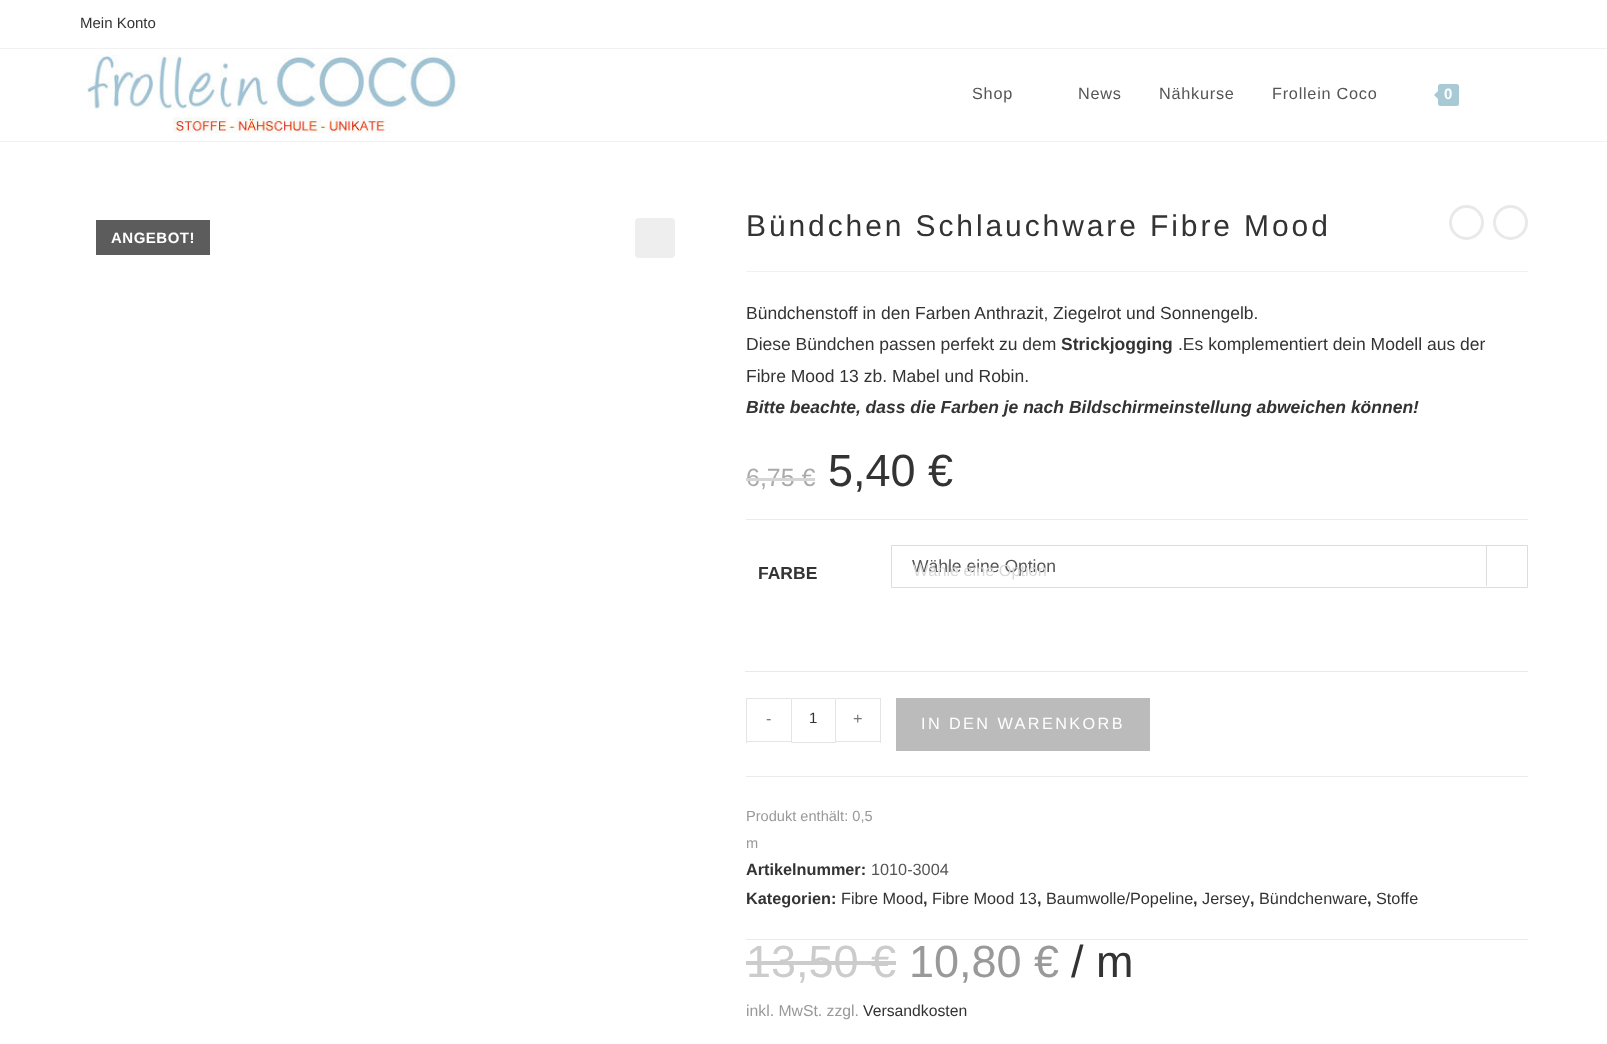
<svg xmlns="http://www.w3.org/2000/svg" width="1607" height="1044">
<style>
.a{font:15px Liberation Sans;fill:#333}
.b{font:16.25px Liberation Sans;letter-spacing:0.75px;fill:#555}
.c{font:bold 15px Liberation Sans;fill:#fff}
.d{font:bold 15px Liberation Sans;letter-spacing:0.5px;fill:#fff}
.e{font:30px Liberation Sans;letter-spacing:2.9px;fill:#333}
.f{font:17.5px Liberation Sans;fill:#333}
.g{font:bold 17.5px Liberation Sans;fill:#333}
.h{font:italic bold 17.5px Liberation Sans;fill:#333}
.i{font:25px Liberation Sans;fill:#aaa}
.j{font:45px Liberation Sans;fill:#333}
.k{font:17.5px Liberation Sans;fill:#555}
.l{font:16.25px Liberation Sans;fill:#d9d9d9}
.m{font:16.25px Liberation Sans;fill:#777}
.n{font:16.25px Liberation Sans;letter-spacing:2.4px;fill:#fff}
.o{font:14.6px Liberation Sans;fill:#999}
.p{font:bold 16.25px Liberation Sans;fill:#333}
.q{font:16.25px Liberation Sans;fill:#555}
.r{font:16.25px Liberation Sans;fill:#333}
.s{font:45px Liberation Sans;fill:#ccc}
.t{font:45px Liberation Sans;fill:#999}
.u{font:15.75px Liberation Sans;fill:#999}
.v{font:15.75px Liberation Sans;fill:#333}
</style>
<rect width="100%" height="100%" fill="#fff"/>
<path fill="#f1f1f1" d="M0 48h1607v1H0z"/>
<path fill="#f1f1f1" d="M0 141h1607v1H0z"/>
<image href="1.png" x="87" y="55" width="374" height="78"/>
<rect fill="#a8cad4" x="1438" y="84" width="21" height="22" rx="2.5"/>
<path fill="#a8cad4" d="M1440 89v12l-6-6z"/>
<path fill="#5c5c5c" d="M96 220h114v35H96z"/>
<rect fill="#eee" x="635" y="218" width="40" height="40" rx="4"/>
<path fill="#f1f1f1" d="M746 271h782v1H746z"/>
<path fill="#eaeaea" d="M746 519h782v1H746z"/>
<path fill="#eaeaea" d="M746 776h782v1H746z"/>
<path fill="#e9e9e9" d="M745 671h783v1H745z"/>
<path fill="none" stroke="#ddd" d="M891.5 545.5h636v42H891.5z"/>
<path fill="#ddd" d="M1486 546h1v40H1486z"/>
<path fill="#e4e4e4" d="M746 698h45v1H746z"/>
<path fill="#e4e4e4" d="M746 741h45v1H746z"/>
<path fill="#e4e4e4" d="M746 698h1v45H746z"/>
<path fill="none" stroke="#e4e4e4" d="M791.5 698.5h44v44H791.5z"/>
<path fill="#e4e4e4" d="M836 698h45v1H836z"/>
<path fill="#e4e4e4" d="M880 698h1v45H880z"/>
<path fill="#e4e4e4" d="M836 741h45v1H836z"/>
<path fill="#bbb" d="M896 698h254v53H896z"/>
<path fill="#eaeaea" d="M746 939h782v1H746z"/>
<path fill="#ccc" d="M746 961h150v4H746z"/>
<circle fill="none" stroke="#e9e9e9" stroke-width="3" cx="1466.5" cy="222.5" r="16"/>
<circle fill="none" stroke="#e9e9e9" stroke-width="3" cx="1510.5" cy="222.5" r="16"/>
<text class="a" x="80" y="28">Mein Konto</text>
<text class="b" x="972" y="99">Shop</text>
<text class="b" x="1078" y="99">News</text>
<text class="b" x="1159" y="99">Nähkurse</text>
<text class="b" x="1272" y="99">Frollein Coco</text>
<text class="c" x="1444" y="99">0</text>
<text class="d" x="111" y="243">ANGEBOT!</text>
<text class="e" x="746" y="236">Bündchen Schlauchware Fibre Mood</text>
<text class="f" x="746" y="319">Bündchenstoff in den Farben Anthrazit, Ziegelrot und Sonnengelb.</text>
<text class="f" x="746" y="350">Diese Bündchen passen perfekt zu dem</text>
<text class="g" x="1061" y="350">Strickjogging</text>
<text class="f" x="1178" y="350">.Es komplementiert dein Modell aus der</text>
<text class="f" x="746" y="382">Fibre Mood 13 zb. Mabel und Robin.</text>
<text class="h" x="746" y="413">Bitte beachte, dass die Farben je nach Bildschirmeinstellung abweichen können!</text>
<text class="i" x="746" y="486">6,75 €</text>
<path fill="#d5d5d5" d="M746 478h69v3H746z"/>
<text class="j" x="828" y="486">5,40 €</text>
<text class="g" x="758" y="579">FARBE</text>
<text class="k" x="912" y="572">Wähle eine Option</text>
<text class="l" x="913" y="576">Wähle eine Option</text>
<text class="m" x="766" y="724">-</text>
<text class="a" x="809" y="723">1</text>
<text class="m" x="853" y="724">+</text>
<text class="n" x="921" y="729">IN DEN WARENKORB</text>
<text class="o" x="746" y="821">Produkt enthält: 0,5</text>
<text class="o" x="746" y="848">m</text>
<text class="p" x="746" y="875">Artikelnummer:</text>
<text class="q" x="871" y="875">1010-3004</text>
<text class="p" x="746" y="904">Kategorien:</text>
<text class="r" x="841" y="904">Fibre Mood</text>
<text class="p" x="923" y="904">,</text>
<text class="r" x="932" y="904">Fibre Mood 13</text>
<text class="p" x="1037" y="904">,</text>
<text class="r" x="1046" y="904">Baumwolle/Popeline</text>
<text class="p" x="1193" y="904">,</text>
<text class="r" x="1202" y="904">Jersey</text>
<text class="p" x="1250" y="904">,</text>
<text class="r" x="1259" y="904">Bündchenware</text>
<text class="p" x="1367" y="904">,</text>
<text class="r" x="1376" y="904">Stoffe</text>
<text class="s" x="746" y="977">13,50 €</text>
<text class="t" x="909" y="977">10,80 €</text>
<text class="j" x="1071" y="977">/ m</text>
<text class="u" x="746" y="1016">inkl. MwSt. zzgl.</text>
<text class="v" x="863" y="1016">Versandkosten</text>
</svg>
